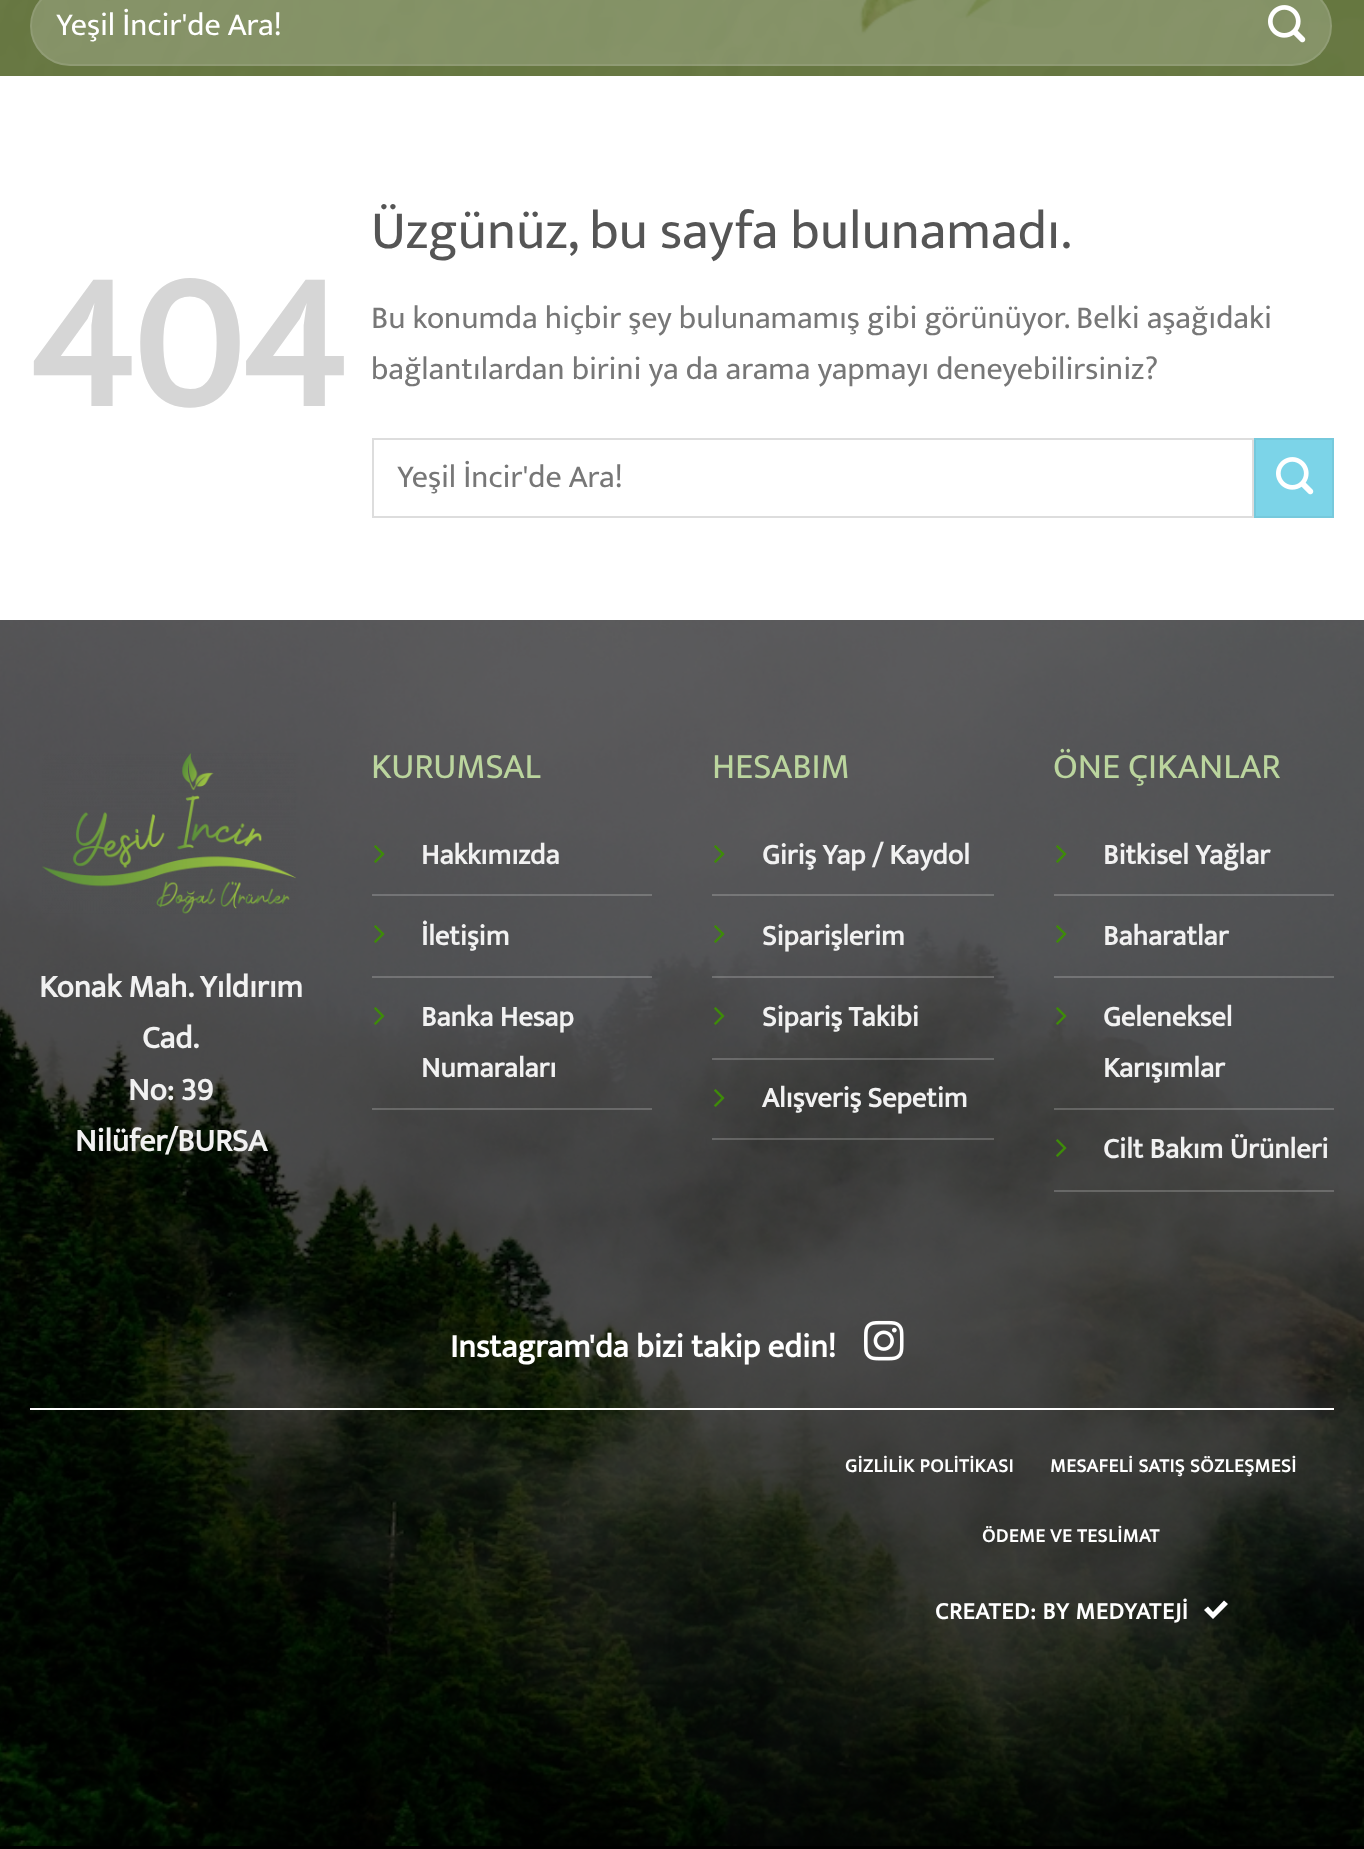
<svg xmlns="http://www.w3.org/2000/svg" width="1364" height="1849">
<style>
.a{font:32px Mukta;fill:#fff}
.b{font:bold 192px Mukta;fill:#d6d6d6}
.c{font:54.4px Mukta;fill:#555}
.d{font:32px Mukta;fill:#777}
.e{font:bold 32px Mukta;fill:#f1f1f1}
.f{font:36px Mukta;fill:#bbd59e}
.g{font:bold 28.75px Mukta;fill:#f1f1f1}
.h{font:bold 33px Mukta;fill:#fff}
.i{font:bold 19.25px Mukta;letter-spacing:0.6px;fill:#fff}
.j{font:bold 24px Mukta;letter-spacing:0.75px;fill:#fff}
</style>
<rect width="100%" height="100%" fill="#fff"/>
<image href="1.png" x="0" y="0" width="1364" height="76"/>
<rect fill="#ffffff33" x="30" y="-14" width="1302" height="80" rx="40"/>
<rect fill="none" stroke="#ffffff17" stroke-width="2" x="31" y="-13" width="1300" height="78" rx="39"/>
<image href="2.png" x="1268" y="5" width="38" height="38"/>
<path fill="none" stroke="#ddd" stroke-width="2" d="M373 439h880v78H373z"/>
<path fill="#7cd4e8" stroke="#76c9dc" stroke-width="2" d="M1255 439h78v78H1255z"/>
<image href="3.png" x="1276" y="457" width="38" height="38"/>
<image href="4.png" x="0" y="620" width="1364" height="1226"/>
<image href="5.png" x="42" y="753" width="254" height="161"/>
<path fill="#ffffff33" d="M372 894h280v2H372z"/>
<image href="6.png" x="374" y="845" width="11" height="18"/>
<path fill="#ffffff33" d="M372 976h280v2H372z"/>
<image href="7.png" x="374" y="925" width="11" height="18"/>
<path fill="#ffffff33" d="M372 1108h280v2H372z"/>
<image href="8.png" x="374" y="1007" width="11" height="18"/>
<path fill="#ffffff33" d="M712 894h282v2H712z"/>
<image href="9.png" x="714" y="845" width="11" height="18"/>
<path fill="#ffffff33" d="M712 976h282v2H712z"/>
<image href="10.png" x="714" y="925" width="11" height="18"/>
<path fill="#ffffff33" d="M712 1058h282v2H712z"/>
<image href="11.png" x="714" y="1007" width="11" height="18"/>
<path fill="#ffffff33" d="M712 1138h282v2H712z"/>
<image href="12.png" x="714" y="1089" width="11" height="18"/>
<path fill="#ffffff33" d="M1054 894h280v2H1054z"/>
<image href="13.png" x="1056" y="845" width="11" height="18"/>
<path fill="#ffffff33" d="M1054 976h280v2H1054z"/>
<image href="14.png" x="1056" y="925" width="11" height="18"/>
<path fill="#ffffff33" d="M1054 1108h280v2H1054z"/>
<image href="15.png" x="1056" y="1007" width="11" height="18"/>
<path fill="#ffffff33" d="M1054 1190h280v2H1054z"/>
<image href="16.png" x="1056" y="1139" width="11" height="18"/>
<image href="17.png" x="864" y="1320" width="40" height="41"/>
<path fill="#fff" d="M30 1408h1304v2H30z"/>
<path fill="#fff" d="M1224 1600.5l-11 11.5l-5-5.5l-4 3.5l9 9l15-15z"/>
<path fill="#000" d="M0 1846h1364v3H0z"/>
<text class="a" x="56" y="35">Yeşil İncir'de Ara!</text>
<text class="b" x="30" y="406">404</text>
<text class="c" x="371" y="248">Üzgünüz, bu sayfa bulunamadı.</text>
<text class="d" x="371" y="328">Bu konumda hiçbir şey bulunamamış gibi görünüyor. Belki aşağıdaki</text>
<text class="d" x="371" y="379">bağlantılardan birini ya da arama yapmayı deneyebilirsiniz?</text>
<text class="d" x="397" y="487">Yeşil İncir'de Ara!</text>
<text class="e" x="39" y="997">Konak Mah. Yıldırım</text>
<text class="e" x="142" y="1048">Cad.</text>
<text class="e" x="128" y="1100">No: 39</text>
<text class="e" x="75" y="1151">Nilüfer/BURSA</text>
<text class="f" x="371" y="778">KURUMSAL</text>
<text class="g" x="421" y="864">Hakkımızda</text>
<text class="g" x="421" y="945">İletişim</text>
<text class="g" x="421" y="1026">Banka Hesap</text>
<text class="g" x="421" y="1077">Numaraları</text>
<text class="f" x="712" y="778">HESABIM</text>
<text class="g" x="762" y="864">Giriş Yap / Kaydol</text>
<text class="g" x="762" y="945">Siparişlerim</text>
<text class="g" x="762" y="1026">Sipariş Takibi</text>
<text class="g" x="762" y="1107">Alışveriş Sepetim</text>
<text class="f" x="1053" y="778">ÖNE ÇIKANLAR</text>
<text class="g" x="1103" y="864">Bitkisel Yağlar</text>
<text class="g" x="1103" y="945">Baharatlar</text>
<text class="g" x="1103" y="1026">Geleneksel</text>
<text class="g" x="1103" y="1077">Karışımlar</text>
<text class="g" x="1103" y="1158">Cilt Bakım Ürünleri</text>
<text class="h" x="450" y="1357">Instagram'da bizi takip edin!</text>
<text class="i" x="845" y="1472">GİZLİLİK POLİTİKASI</text>
<text class="i" x="1050" y="1472">MESAFELİ SATIŞ SÖZLEŞMESİ</text>
<text class="i" x="982" y="1542">ÖDEME VE TESLİMAT</text>
<text class="j" x="935" y="1619">CREATED: BY MEDYATEJİ</text>
</svg>
